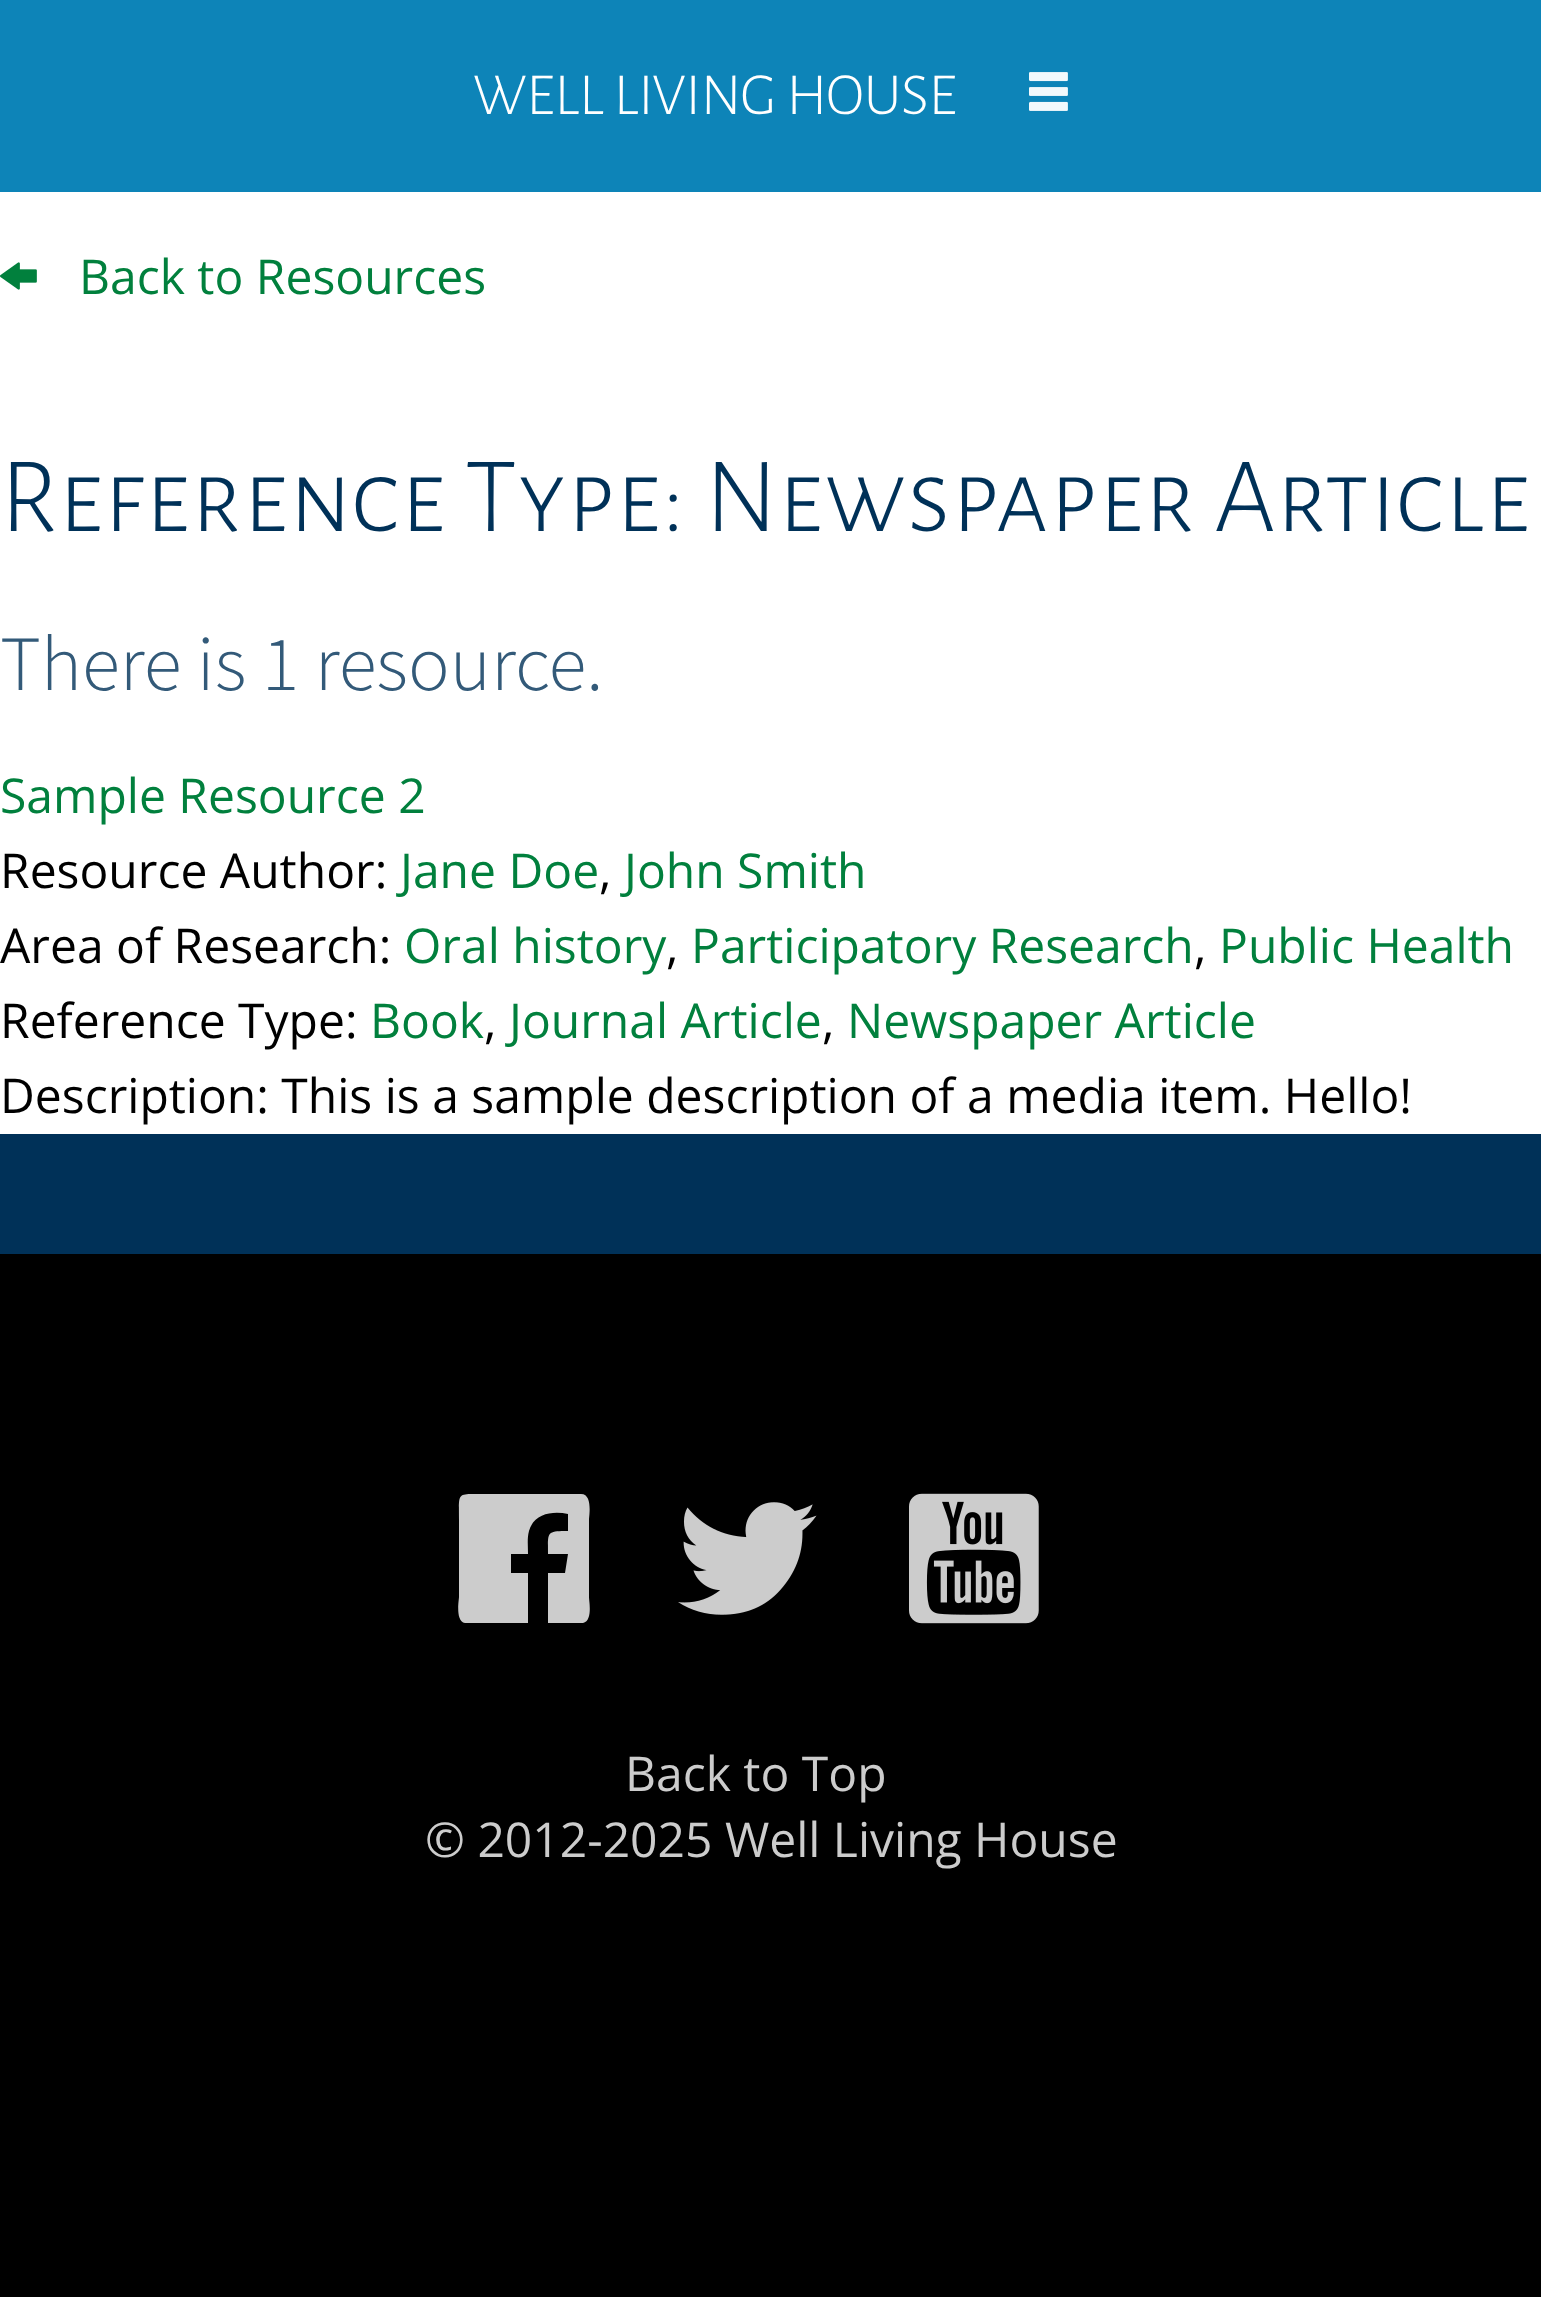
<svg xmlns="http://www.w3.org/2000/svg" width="1541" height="2297">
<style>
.a{font:300 60px Alegreya Sans SC;fill:#fff}
.b{font:48px Open Sans;fill:#01803d}
.c{font:300 108px Alegreya Sans SC;fill:#003158}
.d{font:300 78px Source Sans Pro;fill:#335a79}
.e{font:48px Open Sans;fill:#000}
.f{font:48px Open Sans;fill:#ccc}
</style>
<rect width="100%" height="100%" fill="#000"/>
<path fill="#003158" d="M0 1134h1541v120H0z"/>
<path fill="#0d84b8" d="M0 0h1541v192H0z"/>
<image href="1.png" x="1029" y="72" width="39" height="39"/>
<path fill="#fff" d="M0 192h1541v942H0z"/>
<image href="2.png" x="0" y="262" width="37" height="28"/>
<path fill="#ccc" d="M581 1494c12 0 8 22 8 26v77c0 4 4 24-6 26h-35v-50h17l3-19h-20c0-22-2-23 20-23v-17c-15-3-34-1-39 17c-2 7-1 15-1 23h-17v19h17v50h-63c-10-2-6-23-6-26v-77c0-29-3-26 26-26z"/>
<image href="3.png" x="678" y="1502" width="139" height="113"/>
<image href="4.png" x="909" y="1493" width="130" height="131"/>
<text class="a" x="473" y="114">WELL LIVING HOUSE</text>
<text class="b" x="79" y="294">Back to Resources</text>
<text class="c" x="0" y="531">Reference Type: Newspaper Article</text>
<text class="d" x="0" y="690">There is 1 resource.</text>
<text class="b" x="0" y="813">Sample Resource 2</text>
<text class="e" x="0" y="888">Resource Author:</text>
<text class="b" x="400" y="888">Jane Doe</text>
<text class="e" x="599" y="888">,</text>
<text class="b" x="624" y="888">John Smith</text>
<text class="e" x="0" y="963">Area of Research:</text>
<text class="b" x="404" y="963">Oral history</text>
<text class="e" x="666" y="963">,</text>
<text class="b" x="691" y="963">Participatory Research</text>
<text class="e" x="1194" y="963">,</text>
<text class="b" x="1219" y="963">Public Health</text>
<text class="e" x="0" y="1038">Reference Type:</text>
<text class="b" x="370" y="1038">Book</text>
<text class="e" x="484" y="1038">,</text>
<text class="b" x="509" y="1038">Journal Article</text>
<text class="e" x="822" y="1038">,</text>
<text class="b" x="847" y="1038">Newspaper Article</text>
<text class="e" x="0" y="1113">Description: This is a sample description of a media item. Hello!</text>
<text class="f" x="625" y="1791">Back to Top</text>
<text class="f" x="425" y="1857">© 2012-2025 Well Living House</text>
</svg>
